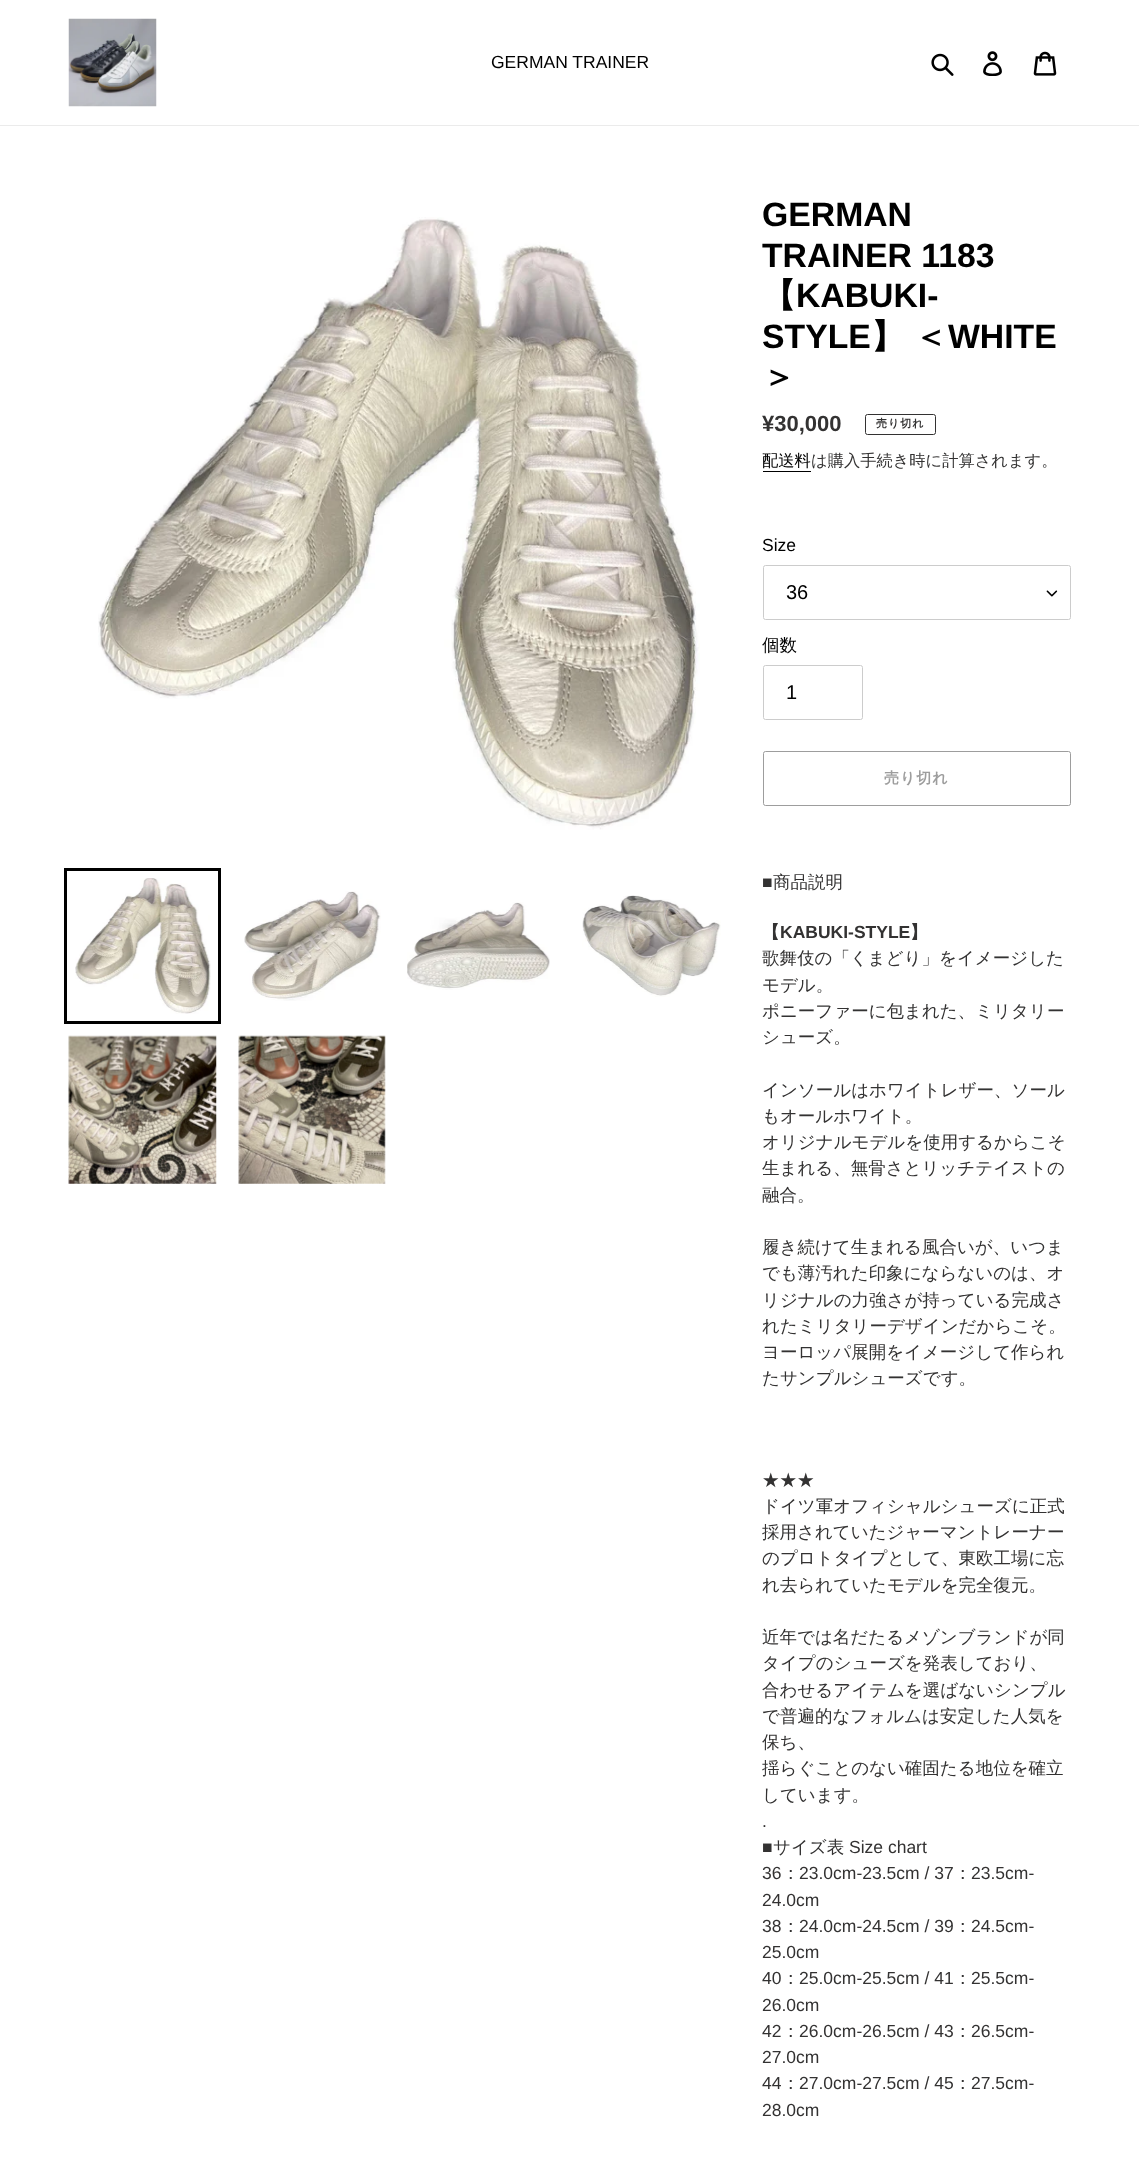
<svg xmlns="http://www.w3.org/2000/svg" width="1139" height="2158">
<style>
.a{font:17.5px Liberation Sans;fill:#000}
.b{font:bold 33.75px Liberation Sans;fill:#000}
.c{font:bold 33.75px WenQuanYi Zen Hei;fill:#000}
.d{font:bold 22px Liberation Sans;fill:#333232}
.e{font:bold 11px WenQuanYi Zen Hei;letter-spacing:1px;fill:#333232}
.f{font:500 16.25px WenQuanYi Zen Hei;fill:#000}
.g{font:500 16.25px WenQuanYi Zen Hei;fill:#333232}
.h{font:20px Liberation Sans;fill:#000}
.i{font:500 17.5px WenQuanYi Zen Hei;fill:#000}
.j{font:bold 15px WenQuanYi Zen Hei;letter-spacing:1px;fill:#9d9d9d}
.k{font:17.5px Liberation Sans;fill:#333232}
.l{font:500 17.5px WenQuanYi Zen Hei;fill:#333232}
.m{font:bold 17.5px WenQuanYi Zen Hei;fill:#333232}
.n{font:bold 17.5px Liberation Sans;fill:#333232}
</style>
<rect width="100%" height="100%" fill="#fff"/>
<path fill="#ebebeb" d="M0 125h1139v1H0z"/>
<image href="1.png" x="68" y="18" width="89" height="89"/>
<image href="2.png" x="931" y="53" width="23" height="23"/>
<image href="3.png" x="983" y="51" width="19" height="25"/>
<image href="4.png" x="1033" y="51" width="24" height="25"/>
<image href="5.png" x="98" y="217" width="602" height="613"/>
<path fill="none" stroke="#000" stroke-width="3" d="M65.5 869.5h154v153H65.5z"/>
<image href="6.png" x="75" y="878" width="136" height="136"/>
<image href="7.png" x="244" y="891" width="137" height="110"/>
<image href="8.png" x="407" y="902" width="143" height="88"/>
<image href="9.png" x="582" y="895" width="139" height="102"/>
<image href="10.png" x="68" y="1035" width="149" height="149"/>
<image href="11.png" x="238" y="1035" width="148" height="149"/>
<rect fill="none" stroke="#333232" x="865.5" y="414.5" width="70" height="20" rx="2"/>
<path fill="#000" d="M763 471h48v1H763z"/>
<image href="12.png" x="1046" y="590" width="12" height="7"/>
<rect fill="none" stroke="#ccc" x="763.5" y="565.5" width="307" height="54" rx="2"/>
<rect fill="none" stroke="#ccc" x="763.5" y="665.5" width="99" height="54" rx="2"/>
<rect fill="none" stroke="#9d9d9d" x="763.5" y="751.5" width="307" height="54" rx="2"/>
<text class="a" x="491" y="68">GERMAN TRAINER</text>
<text class="b" x="762" y="226">GERMAN</text>
<text class="b" x="762" y="267">TRAINER 1183</text>
<text class="c" x="762" y="307">【</text>
<text class="b" x="796" y="307">KABUKI-</text>
<text class="b" x="762" y="348">STYLE</text>
<text class="c" x="871" y="348" word-spacing="-1">】 ＜</text>
<text class="b" x="948" y="348">WHITE</text>
<text class="c" x="762" y="388">＞</text>
<text class="d" x="762" y="431">¥30,000</text>
<text class="e" x="876" y="427">売り切れ</text>
<text class="f" x="762" y="466">配送料</text>
<text class="g" x="811" y="466">は購入手続き時に計算されます。</text>
<text class="a" x="762" y="551">Size</text>
<text class="h" x="786" y="599">36</text>
<text class="i" x="762" y="651">個数</text>
<text class="h" x="786" y="699">1</text>
<text class="j" x="884" y="783">売り切れ</text>
<text class="k" x="762" y="888">■</text>
<text class="l" x="773" y="888">商品説明</text>
<text class="m" x="762" y="938">【</text>
<text class="n" x="780" y="938">KABUKI-STYLE</text>
<text class="m" x="910" y="938">】</text>
<text class="l" x="762" y="964">歌舞伎の「くまどり」をイメージした</text>
<text class="l" x="762" y="991">モデル。</text>
<text class="l" x="762" y="1017">ポニーファーに包まれた、ミリタリー</text>
<text class="l" x="762" y="1043">シューズ。</text>
<text class="l" x="762" y="1096">インソールはホワイトレザー、ソール</text>
<text class="l" x="762" y="1122">もオールホワイト。</text>
<text class="l" x="762" y="1148">オリジナルモデルを使用するからこそ</text>
<text class="l" x="762" y="1174">生まれる、無骨さとリッチテイストの</text>
<text class="l" x="762" y="1201">融合。</text>
<text class="l" x="762" y="1253">履き続けて生まれる風合いが、いつま</text>
<text class="l" x="762" y="1279">でも薄汚れた印象にならないのは、オ</text>
<text class="l" x="762" y="1306">リジナルの力強さが持っている完成さ</text>
<text class="l" x="762" y="1332">れたミリタリーデザインだからこそ。</text>
<text class="l" x="762" y="1358">ヨーロッパ展開をイメージして作られ</text>
<text class="l" x="762" y="1384">たサンプルシューズです。</text>
<text class="l" x="762" y="1486">★★★</text>
<text class="l" x="762" y="1512">ドイツ軍オフィシャルシューズに正式</text>
<text class="l" x="762" y="1538">採用されていたジャーマントレーナー</text>
<text class="l" x="762" y="1564">のプロトタイプとして、東欧工場に忘</text>
<text class="l" x="762" y="1591">れ去られていたモデルを完全復元。</text>
<text class="l" x="762" y="1643">近年では名だたるメゾンブランドが同</text>
<text class="l" x="762" y="1669">タイプのシューズを発表しており、</text>
<text class="l" x="762" y="1696">合わせるアイテムを選ばないシンプル</text>
<text class="l" x="762" y="1722">で普遍的なフォルムは安定した人気を</text>
<text class="l" x="762" y="1748">保ち、</text>
<text class="l" x="762" y="1774">揺らぐことのない確固たる地位を確立</text>
<text class="l" x="762" y="1801">しています。</text>
<text class="k" x="762" y="1827">.</text>
<text class="k" x="762" y="1853">■</text>
<text class="l" x="773" y="1853">サイズ表</text>
<text class="k" x="849" y="1853">Size chart</text>
<text class="k" x="762" y="1879">36</text>
<text class="l" x="782" y="1879">：</text>
<text class="k" x="799" y="1879">23.0cm-23.5cm / 37</text>
<text class="l" x="954" y="1879">：</text>
<text class="k" x="971" y="1879">23.5cm-</text>
<text class="k" x="762" y="1906">24.0cm</text>
<text class="k" x="762" y="1932">38</text>
<text class="l" x="782" y="1932">：</text>
<text class="k" x="799" y="1932">24.0cm-24.5cm / 39</text>
<text class="l" x="954" y="1932">：</text>
<text class="k" x="971" y="1932">24.5cm-</text>
<text class="k" x="762" y="1958">25.0cm</text>
<text class="k" x="762" y="1984">40</text>
<text class="l" x="782" y="1984">：</text>
<text class="k" x="799" y="1984">25.0cm-25.5cm / 41</text>
<text class="l" x="954" y="1984">：</text>
<text class="k" x="971" y="1984">25.5cm-</text>
<text class="k" x="762" y="2011">26.0cm</text>
<text class="k" x="762" y="2037">42</text>
<text class="l" x="782" y="2037">：</text>
<text class="k" x="799" y="2037">26.0cm-26.5cm / 43</text>
<text class="l" x="954" y="2037">：</text>
<text class="k" x="971" y="2037">26.5cm-</text>
<text class="k" x="762" y="2063">27.0cm</text>
<text class="k" x="762" y="2089">44</text>
<text class="l" x="782" y="2089">：</text>
<text class="k" x="799" y="2089">27.0cm-27.5cm / 45</text>
<text class="l" x="954" y="2089">：</text>
<text class="k" x="971" y="2089">27.5cm-</text>
<text class="k" x="762" y="2116">28.0cm</text>
</svg>
